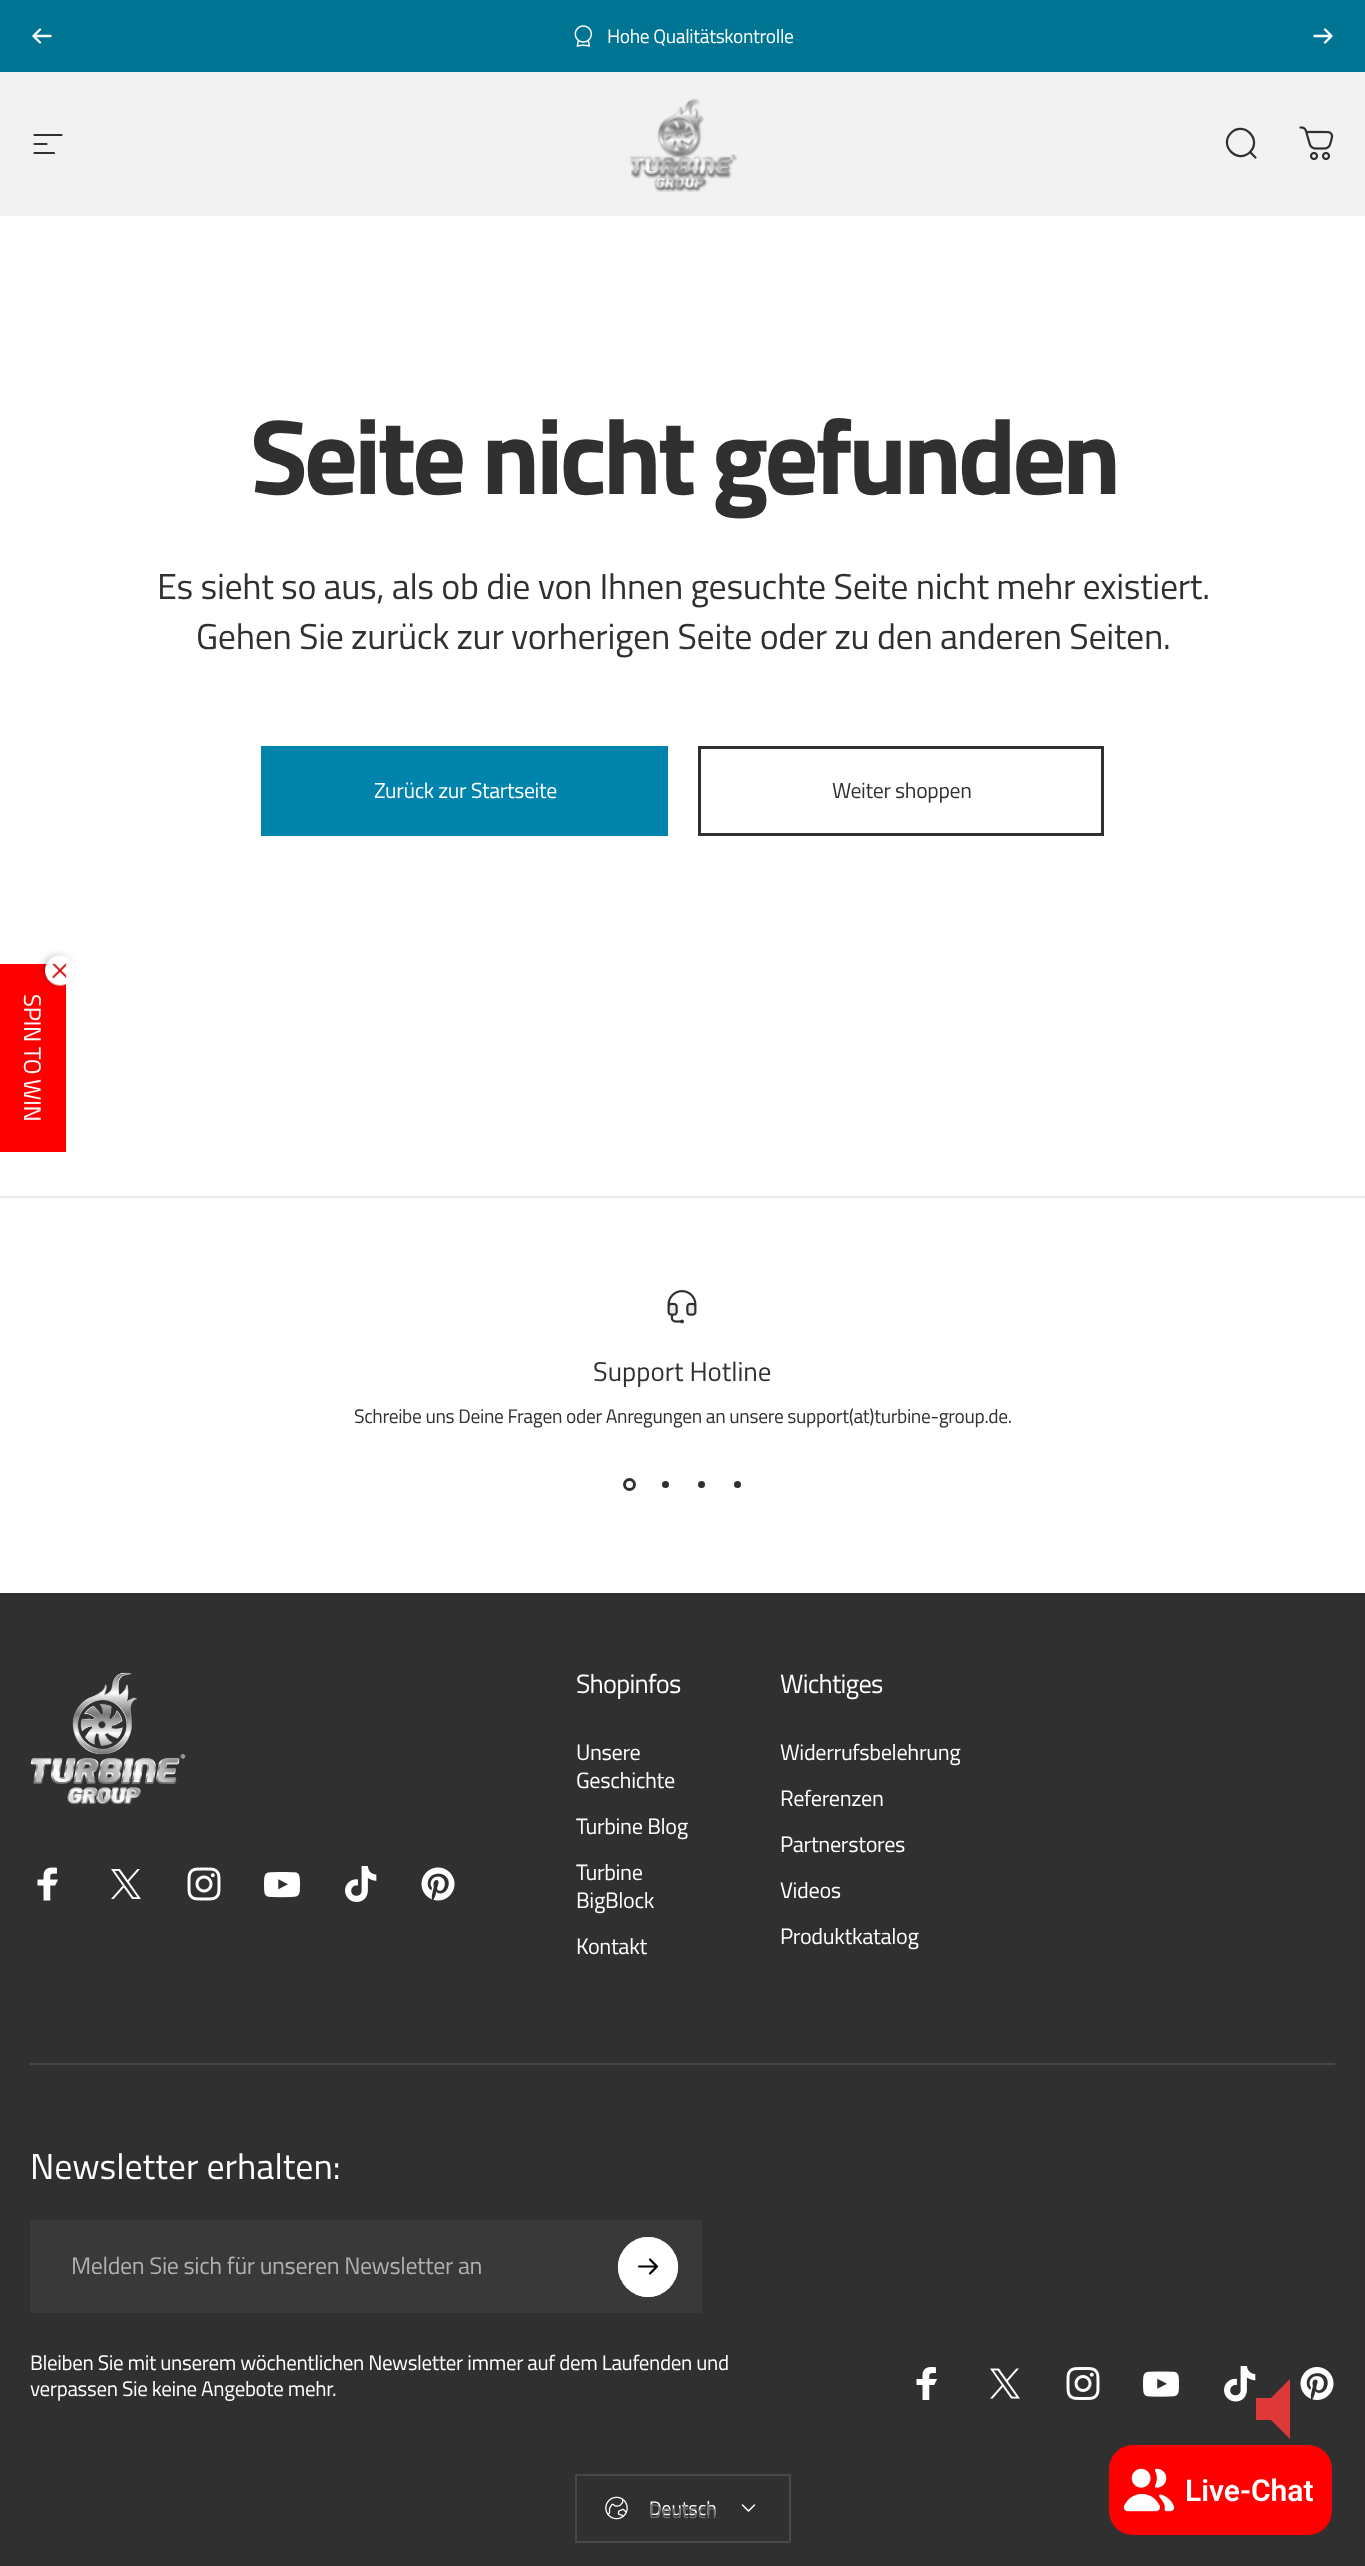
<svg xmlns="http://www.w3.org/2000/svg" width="1365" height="2566">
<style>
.a{font:19.5px Titillium Web;letter-spacing:-0.35px;fill:#fff}
.b{font:bold 106.75px Titillium Web;letter-spacing:-4.25px;fill:#303030}
.c{font:36px Titillium Web;letter-spacing:-0.35px;fill:#303030}
.d{font:21.75px Titillium Web;letter-spacing:-0.35px;fill:#fff}
.e{font:21.75px Titillium Web;letter-spacing:-0.35px;fill:#303030}
.f{font:27px Titillium Web;fill:#303030}
.g{font:19.5px Titillium Web;letter-spacing:-0.35px;fill:#303030}
.h{font:26.5px Titillium Web;letter-spacing:-0.75px;fill:#fff}
.i{font:22.25px Titillium Web;letter-spacing:-0.35px;fill:#fff}
.j{font:36px Titillium Web;fill:#fff}
.k{font:24px Titillium Web;letter-spacing:-0.35px;fill:#b0b0b0}
.l{font:21px Titillium Web;letter-spacing:-0.35px;fill:#fff}
.m{font:19.5px Titillium Web;fill:#fff}
.n{font:19.5px Titillium Web;fill:#6f6f6f}
.o{font:24px Titillium Web;letter-spacing:-0.35px;fill:#fff}
.p{font:600 30px Roboto;fill:#fff}
</style>
<rect width="100%" height="100%" fill="#fff"/>
<path fill="#007593" d="M0 0h1365v72H0z"/>
<path fill="none" stroke="#fafafa" stroke-width="2.4" stroke-linecap="round" stroke-linejoin="round" d="M40 29.5l-6.5 6.5m0 0l6.5 6.5m-6.5-6.5h17"/>
<image href="1.png" x="574" y="25" width="19" height="22"/>
<path fill="none" stroke="#fafafa" stroke-width="2.4" stroke-linecap="round" stroke-linejoin="round" d="M1314.5 36h17m0 0l-6.5-6.5m6.5 6.5l-6.5 6.5"/>
<path fill="#f2f2f2" d="M0 72h1365v144H0z"/>
<path fill="none" stroke="#303030" stroke-width="2.2" stroke-linecap="round" d="M34.5 135h27m-27 9h12m-12 9h19.5"/>
<image href="2.png" x="629" y="98" width="109" height="94"/>
<path fill="none" stroke="#303030" stroke-width="2.2" stroke-linecap="round" d="M1255.5 157.5l-5.5-5.5m0 0c12.5-12.5-6.5-31.5-19-19c-12.5 12.5 6.5 31.5 19 19z"/>
<image href="3.png" x="1299" y="126" width="35" height="35"/>
<path fill="#0084ab" d="M261 746h407v90H261z"/>
<path fill="none" stroke="#303030" stroke-width="3" d="M699.5 747.5h403v87H699.5z"/>
<path fill="#eaeaea" d="M0 1196h1365v2H0z"/>
<image href="4.png" x="667" y="1290" width="30" height="34"/>
<circle fill="none" stroke="#303030" stroke-width="3" cx="629.5" cy="1484.5" r="5"/>
<circle fill="#303030" cx="665.5" cy="1484.5" r="3.5"/>
<circle fill="#303030" cx="701.5" cy="1484.5" r="3.5"/>
<circle fill="#303030" cx="737.5" cy="1484.5" r="3.5"/>
<path fill="#303030" d="M0 1593h1365v973H0z"/>
<image href="5.png" x="30" y="1672" width="156" height="133"/>
<image href="6.png" x="37" y="1867" width="21" height="34"/>
<image href="7.png" x="111" y="1869" width="30" height="30"/>
<image href="8.png" x="187" y="1867" width="34" height="34"/>
<image href="9.png" x="264" y="1872" width="36" height="26"/>
<image href="10.png" x="345" y="1866" width="32" height="36"/>
<image href="11.png" x="421" y="1867" width="34" height="34"/>
<path fill="#484848" d="M30 2063h1305v2H30z"/>
<path fill="#393939" d="M30 2220h672v93H30z"/>
<circle fill="#fff" cx="648" cy="2267" r="30"/>
<path fill="#fff" fill-rule="evenodd" d="M648 2237c-5 0-9 1-13 3h26c-4-2-8-3-13-3zm27 17c4 8 4 18 0 26zm-14 40c-8 4-18 4-26 0zm-40-14c-4-8-4-18 0-26z"/>
<path fill="none" stroke="#000" stroke-width="2.2" stroke-linecap="round" stroke-linejoin="round" d="M639 2266.5h18m0 0l-7-7m7 7l-7 7"/>
<image href="12.png" x="916" y="2367" width="21" height="33"/>
<image href="13.png" x="990" y="2368" width="30" height="31"/>
<image href="14.png" x="1066" y="2367" width="34" height="33"/>
<image href="15.png" x="1143" y="2371" width="36" height="26"/>
<image href="16.png" x="1224" y="2366" width="32" height="36"/>
<image href="17.png" x="1300" y="2367" width="34" height="33"/>
<path fill="none" stroke="#484848" stroke-width="2" d="M576 2475h214v67H576z"/>
<image href="18.png" x="605" y="2496" width="23" height="24"/>
<path fill="none" stroke="#fff" stroke-width="1.5" stroke-linecap="round" stroke-linejoin="round" d="M742.5 2505l6 6l6-6"/>
<path fill="#f00" d="M0 964h66v188H0z"/>
<image href="19.png" x="38" y="951" width="38" height="39"/>
<path fill="#df3838" d="M1256 2398v22h15l19 19v-60l-19 19z"/>
<rect fill="#f00" x="1109" y="2445" width="223" height="90" rx="24"/>
<image href="20.png" x="1123" y="2468" width="52" height="44"/>
<text class="a" x="607" y="43">Hohe Qualitätskontrolle</text>
<text class="b" x="250" y="494">Seite nicht gefunden</text>
<text class="c" x="157" y="599">Es sieht so aus, als ob die von Ihnen gesuchte Seite nicht mehr existiert.</text>
<text class="c" x="196" y="649">Gehen Sie zurück zur vorherigen Seite oder zu den anderen Seiten.</text>
<text class="d" x="374" y="798">Zurück zur Startseite</text>
<text class="e" x="832" y="798">Weiter shoppen</text>
<text class="f" x="593" y="1381">Support Hotline</text>
<text class="g" x="354" y="1423">Schreibe uns Deine Fragen oder Anregungen an unsere support(at)turbine-group.de.</text>
<text class="h" x="576" y="1693">Shopinfos</text>
<text class="i" x="576" y="1760">Unsere</text>
<text class="i" x="576" y="1788">Geschichte</text>
<text class="i" x="576" y="1834">Turbine Blog</text>
<text class="i" x="576" y="1880">Turbine</text>
<text class="i" x="576" y="1908">BigBlock</text>
<text class="i" x="576" y="1954">Kontakt</text>
<text class="h" x="780" y="1693">Wichtiges</text>
<text class="i" x="780" y="1760">Widerrufsbelehrung</text>
<text class="i" x="780" y="1806">Referenzen</text>
<text class="i" x="780" y="1852">Partnerstores</text>
<text class="i" x="780" y="1898">Videos</text>
<text class="i" x="780" y="1944">Produktkatalog</text>
<text class="j" x="30" y="2179">Newsletter erhalten:</text>
<text class="k" x="71" y="2274">Melden Sie sich für unseren Newsletter an</text>
<text class="l" x="30" y="2370">Bleiben Sie mit unserem wöchentlichen Newsletter immer auf dem Laufenden und</text>
<text class="l" x="30" y="2396">verpassen Sie keine Angebote mehr.</text>
<text class="m" x="649" y="2515">Deutsch</text>
<text class="n" x="649" y="2518">Deutsch</text>
<text class="o" x="24" y="994" transform="rotate(90 24 994)">SPIN TO WIN</text>
<text class="p" x="1185" y="2501">Live-Chat</text>
</svg>
